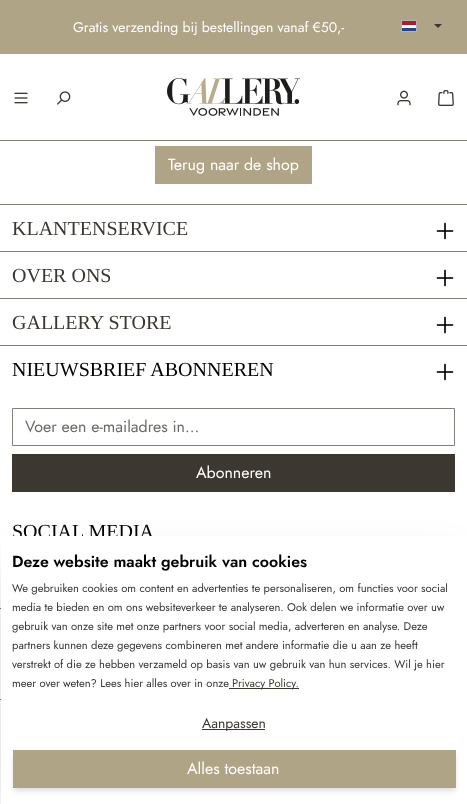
<svg xmlns="http://www.w3.org/2000/svg" width="467" height="804">
<style>
.a{font:14px Jost;fill:#fff}
.b{font:16px Jost;fill:#fff}
.c{font:20px Liberation Serif;fill:#3c3831}
.d{font:20px Liberation Serif;fill:#000}
.e{font:16px Jost;fill:#6d6a65}
.f{font:600 16px Jost;fill:#000}
.g{font:11.2px Jost;fill:#333}
.h{font:11.2px Jost;fill:#3c3831}
.i{font:14px Jost;fill:#3c3831}
</style>
<rect width="100%" height="100%" fill="#fff"/>
<path fill="#837e77" d="M0 140h467v1H0z"/>
<path fill="#b0a486" d="M0 0h467v54H0z"/>
<path fill="#21468b" d="M402 28h14v3H402z"/>
<path fill="#fff" d="M402 25h14v3H402z"/>
<path fill="#ae1c28" d="M402 21h14v4H402z"/>
<path fill="none" stroke="#adb5bd" d="M401.5 20.5h15v11H401.5z"/>
<path fill="#3c3831" d="M434 24h8l-4 4z"/>
<image href="1.png" x="14" y="92" width="14" height="12"/>
<image href="2.png" x="57" y="91" width="14" height="14"/>
<image href="3.png" x="167" y="78" width="133" height="38"/>
<image href="4.png" x="397" y="90" width="14" height="16"/>
<image href="5.png" x="438" y="90" width="16" height="16"/>
<path fill="#b0a486" d="M155 146h157v38H155z"/>
<path fill="#837e77" d="M0 204h467v1H0z"/>
<path fill="#837e77" d="M0 251h467v1H0z"/>
<image href="6.png" x="436" y="222" width="18" height="18"/>
<path fill="#837e77" d="M0 298h467v1H0z"/>
<image href="6.png" x="436" y="269" width="18" height="18"/>
<path fill="#837e77" d="M0 345h467v1H0z"/>
<image href="6.png" x="436" y="316" width="18" height="18"/>
<path fill="#837e77" d="M0 608h1v1H0z"/>
<image href="6.png" x="436" y="363" width="18" height="18"/>
<path fill="none" stroke="#837e77" d="M12.5 408.5h442v37H12.5z"/>
<path fill="#3c3831" d="M12 454h443v38H12z"/>
<path fill="#837e77" d="M0 699h1v1H0z"/>
<path fill="#00000040" filter="blur(25px)" d="M13 573h443v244H13z"/>
<text class="a" x="73" y="32">Gratis verzending bij bestellingen vanaf €50,-</text>
<text class="b" x="168" y="170">Terug naar de shop</text>
<text class="c" x="12" y="235">KLANTENSERVICE</text>
<text class="c" x="12" y="282">OVER ONS</text>
<text class="c" x="12" y="329">GALLERY STORE</text>
<text class="d" x="12" y="376">NIEUWSBRIEF ABONNEREN</text>
<text class="e" x="25" y="432">Voer een e-mailadres in...</text>
<text class="b" x="196" y="478">Abonneren</text>
<text class="d" x="12" y="538">SOCIAL MEDIA</text>
<path fill="#fff" d="M1 536h466v268H1z"/>
<text class="f" x="12" y="567">Deze website maakt gebruik van cookies</text>
<text class="g" x="12" y="592">We gebruiken cookies om content en advertenties te personaliseren, om functies voor social</text>
<text class="g" x="12" y="611">media te bieden en om ons websiteverkeer te analyseren. Ook delen we informatie over uw</text>
<text class="g" x="12" y="630">gebruik van onze site met onze partners voor social media, adverteren en analyse. Deze</text>
<text class="g" x="12" y="649">partners kunnen deze gegevens combineren met andere informatie die u aan ze heeft</text>
<text class="g" x="12" y="668">verstrekt of die ze hebben verzameld op basis van uw gebruik van hun services. Wil je hier</text>
<text class="g" x="12" y="687">meer over weten? Lees hier alles over in onze</text>
<path fill="#3c3831" d="M229 688h70v1H229z"/>
<text class="h" x="232" y="687">Privacy Policy.</text>
<path fill="#3c3831" d="M202 729h63v1H202z"/>
<text class="i" x="202" y="728">Aanpassen</text>
<path fill="#0000000f" filter="blur(2px)" d="M14 753h441v36H14z"/>
<path fill="#0000001a" filter="blur(3px)" d="M14 755h441v36H14z"/>
<path fill="#b0a486" d="M13 750h443v38H13z"/>
<text class="b" x="187" y="774">Alles toestaan</text>
</svg>
